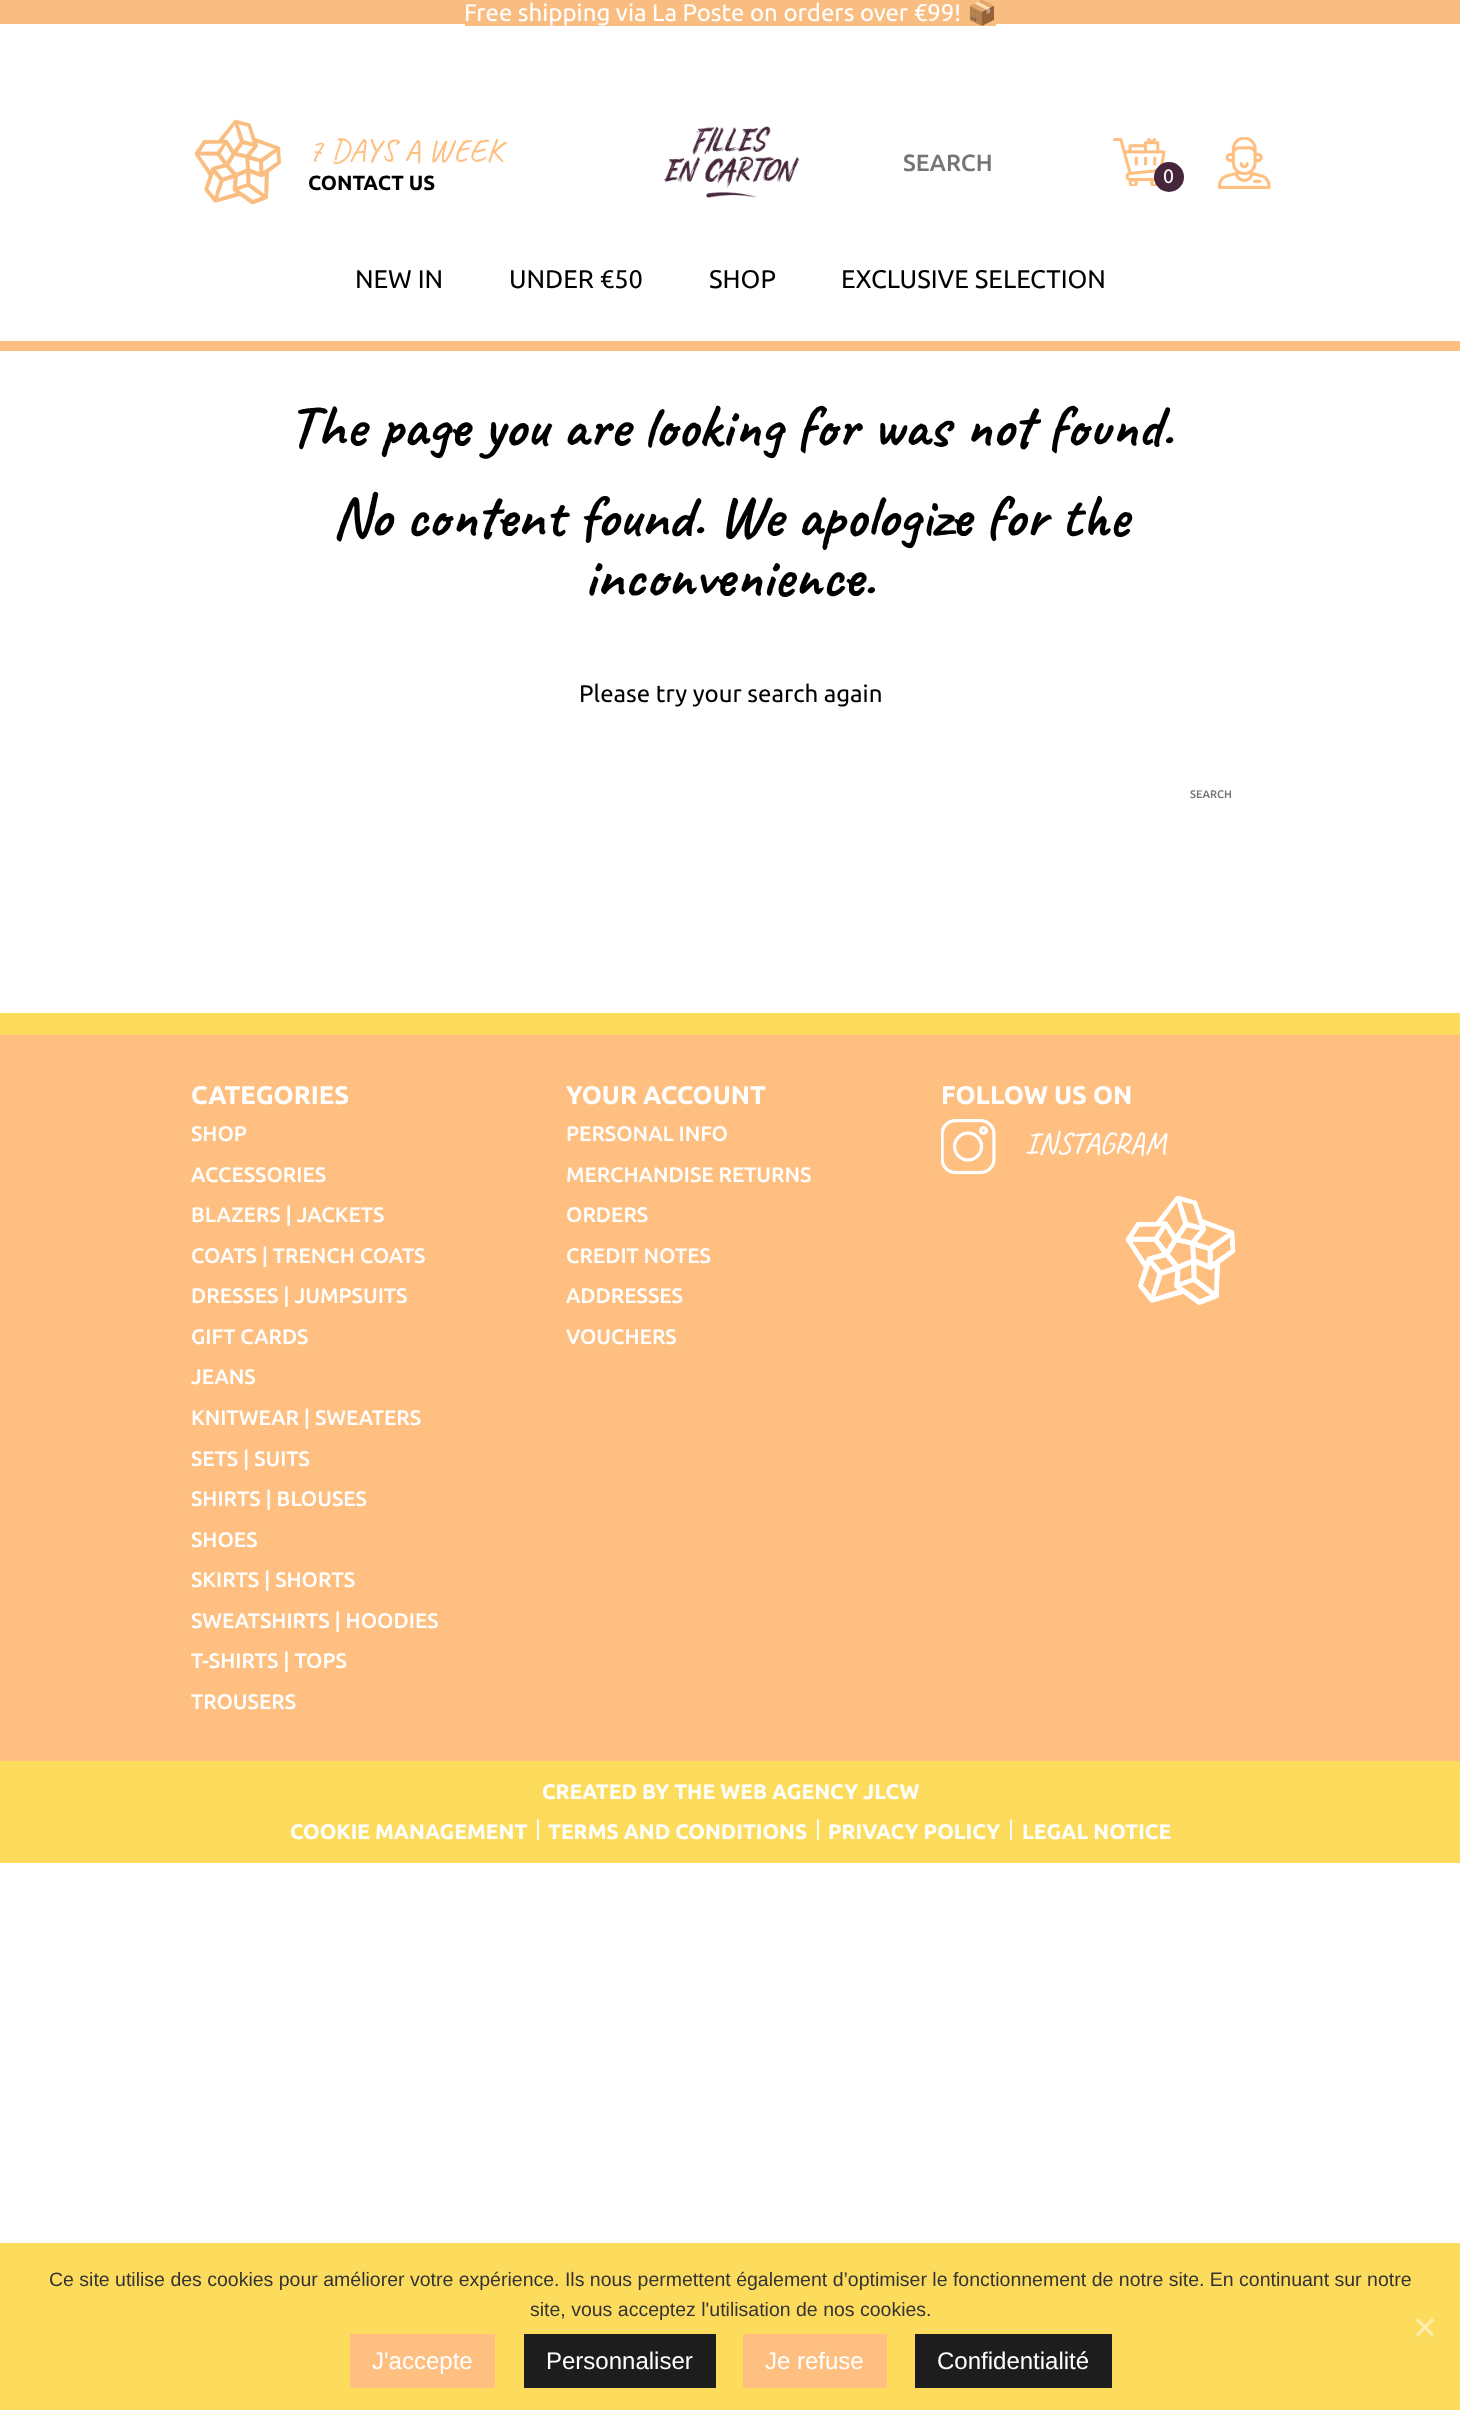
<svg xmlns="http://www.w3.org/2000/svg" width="1460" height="2410">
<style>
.a{font:24px Ubuntu;fill:#fff}
.b{font:24px Noto Color Emoji;fill:#fff}
.c{font:32.5px Caveat;fill:#ffbf81}
.d{font:bold 20.5px Ubuntu;fill:#000}
.e{font:500 23.5px Ubuntu;fill:#757575}
.f{font:19.5px Ubuntu;fill:#fff}
.g{font:25.5px Ubuntu;fill:#000}
.h{font:bold 60px Caveat;fill:#000}
.i{font:24px Ubuntu;fill:#000}
.j{font:500 11px Ubuntu;fill:#757575}
.k{font:bold 25.5px Ubuntu;fill:#fff}
.l{font:500 21px Ubuntu;fill:#fff}
.m{font:500 30.5px Caveat;fill:#fff}
.n{font:bold 21px Ubuntu;fill:#fff}
.o{font:21px Ubuntu;fill:#fff}
.p{font:19.5px Liberation Sans;fill:#333}
.q{font:24px Liberation Sans;fill:#fff}
</style>
<rect width="100%" height="100%" fill="#fff"/>
<path fill="#fabd81" d="M0 0h1460v24H0z"/>
<path fill="#fabd81" d="M465 24h531v2H465z"/>
<image href="1.png" x="194" y="119" width="87" height="86"/>
<image href="2.png" x="663" y="126" width="137" height="72"/>
<image href="3.png" x="1218" y="137" width="53" height="52"/>
<image href="4.png" x="1113" y="138" width="53" height="48"/>
<circle fill="#46263a" cx="1169" cy="177" r="15"/>
<path fill="#ffbf81" d="M0 341h1460v10H0z"/>
<path fill="#fddc5d" d="M0 1013h1460v850H0z"/>
<path fill="#ffbf81" d="M0 1035h1460v726H0z"/>
<image href="5.png" x="941" y="1119" width="55" height="56"/>
<image href="6.png" x="1125" y="1195" width="111" height="110"/>
<path fill="#fddc5d" d="M0 2243h1460v167H0z"/>
<path fill="#feeeae" d="M1432 2318l2 2.5l-16 16l-2-2.5z"/>
<path fill="#feeeae" d="M1416 2320.5l2-2.5l16 16l-2 2.5z"/>
<path fill="#ffbf81" d="M350 2334h145v54H350z"/>
<path fill="#1d1d1d" d="M524 2334h192v54H524z"/>
<path fill="#ffbf81" d="M743 2334h144v54H743z"/>
<path fill="#1d1d1d" d="M915 2334h197v54H915z"/>
<text class="a" x="464" y="21">Free shipping via La Poste on orders over €99!</text>
<text class="b" x="967" y="21">📦</text>
<text class="c" x="308" y="161">7 DAYS A WEEK</text>
<text class="d" x="308" y="190">CONTACT US</text>
<text class="e" x="903" y="171">SEARCH</text>
<text class="f" x="1163" y="183">0</text>
<text class="g" x="355" y="288">NEW IN</text>
<text class="g" x="509" y="288">UNDER €50</text>
<text class="g" x="709" y="288">SHOP</text>
<text class="g" x="841" y="288">EXCLUSIVE SELECTION</text>
<text class="h" x="288" y="446">The page you are looking for was not found.</text>
<text class="h" x="332" y="536">No content found. We apologize for the</text>
<text class="h" x="584" y="596">inconvenience.</text>
<text class="i" x="579" y="702">Please try your search again</text>
<text class="j" x="1190" y="798">SEARCH</text>
<text class="k" x="191" y="1104">CATEGORIES</text>
<text class="l" x="191" y="1141">SHOP</text>
<text class="l" x="191" y="1182">ACCESSORIES</text>
<text class="l" x="191" y="1222">BLAZERS | JACKETS</text>
<text class="l" x="191" y="1263">COATS | TRENCH COATS</text>
<text class="l" x="191" y="1303">DRESSES | JUMPSUITS</text>
<text class="l" x="191" y="1344">GIFT CARDS</text>
<text class="l" x="191" y="1384">JEANS</text>
<text class="l" x="191" y="1425">KNITWEAR | SWEATERS</text>
<text class="l" x="191" y="1466">SETS | SUITS</text>
<text class="l" x="191" y="1506">SHIRTS | BLOUSES</text>
<text class="l" x="191" y="1547">SHOES</text>
<text class="l" x="191" y="1587">SKIRTS | SHORTS</text>
<text class="l" x="191" y="1628">SWEATSHIRTS | HOODIES</text>
<text class="l" x="191" y="1668">T-SHIRTS | TOPS</text>
<text class="l" x="191" y="1709">TROUSERS</text>
<text class="k" x="566" y="1104">YOUR ACCOUNT</text>
<text class="l" x="566" y="1141">PERSONAL INFO</text>
<text class="l" x="566" y="1182">MERCHANDISE RETURNS</text>
<text class="l" x="566" y="1222">ORDERS</text>
<text class="l" x="566" y="1263">CREDIT NOTES</text>
<text class="l" x="566" y="1303">ADDRESSES</text>
<text class="l" x="566" y="1344">VOUCHERS</text>
<text class="k" x="941" y="1104">FOLLOW US ON</text>
<text class="m" x="1025" y="1153">INSTAGRAM</text>
<text class="n" x="542" y="1799">CREATED BY THE WEB AGENCY JLCW</text>
<text class="n" x="290" y="1839">COOKIE MANAGEMENT</text>
<text class="o" x="535" y="1836">|</text>
<text class="n" x="548" y="1839">TERMS AND CONDITIONS</text>
<text class="o" x="815" y="1836">|</text>
<text class="n" x="828" y="1839">PRIVACY POLICY</text>
<text class="o" x="1008" y="1836">|</text>
<text class="n" x="1022" y="1839">LEGAL NOTICE</text>
<text class="p" x="49" y="2286">Ce site utilise des cookies pour améliorer votre expérience. Ils nous permettent également d’optimiser le fonctionnement de notre site. En continuant sur notre</text>
<text class="p" x="530" y="2316">site, vous acceptez l'utilisation de nos cookies.</text>
<text class="q" x="372" y="2369">J'accepte</text>
<text class="q" x="546" y="2369">Personnaliser</text>
<text class="q" x="765" y="2369">Je refuse</text>
<text class="q" x="937" y="2369">Confidentialité</text>
</svg>
